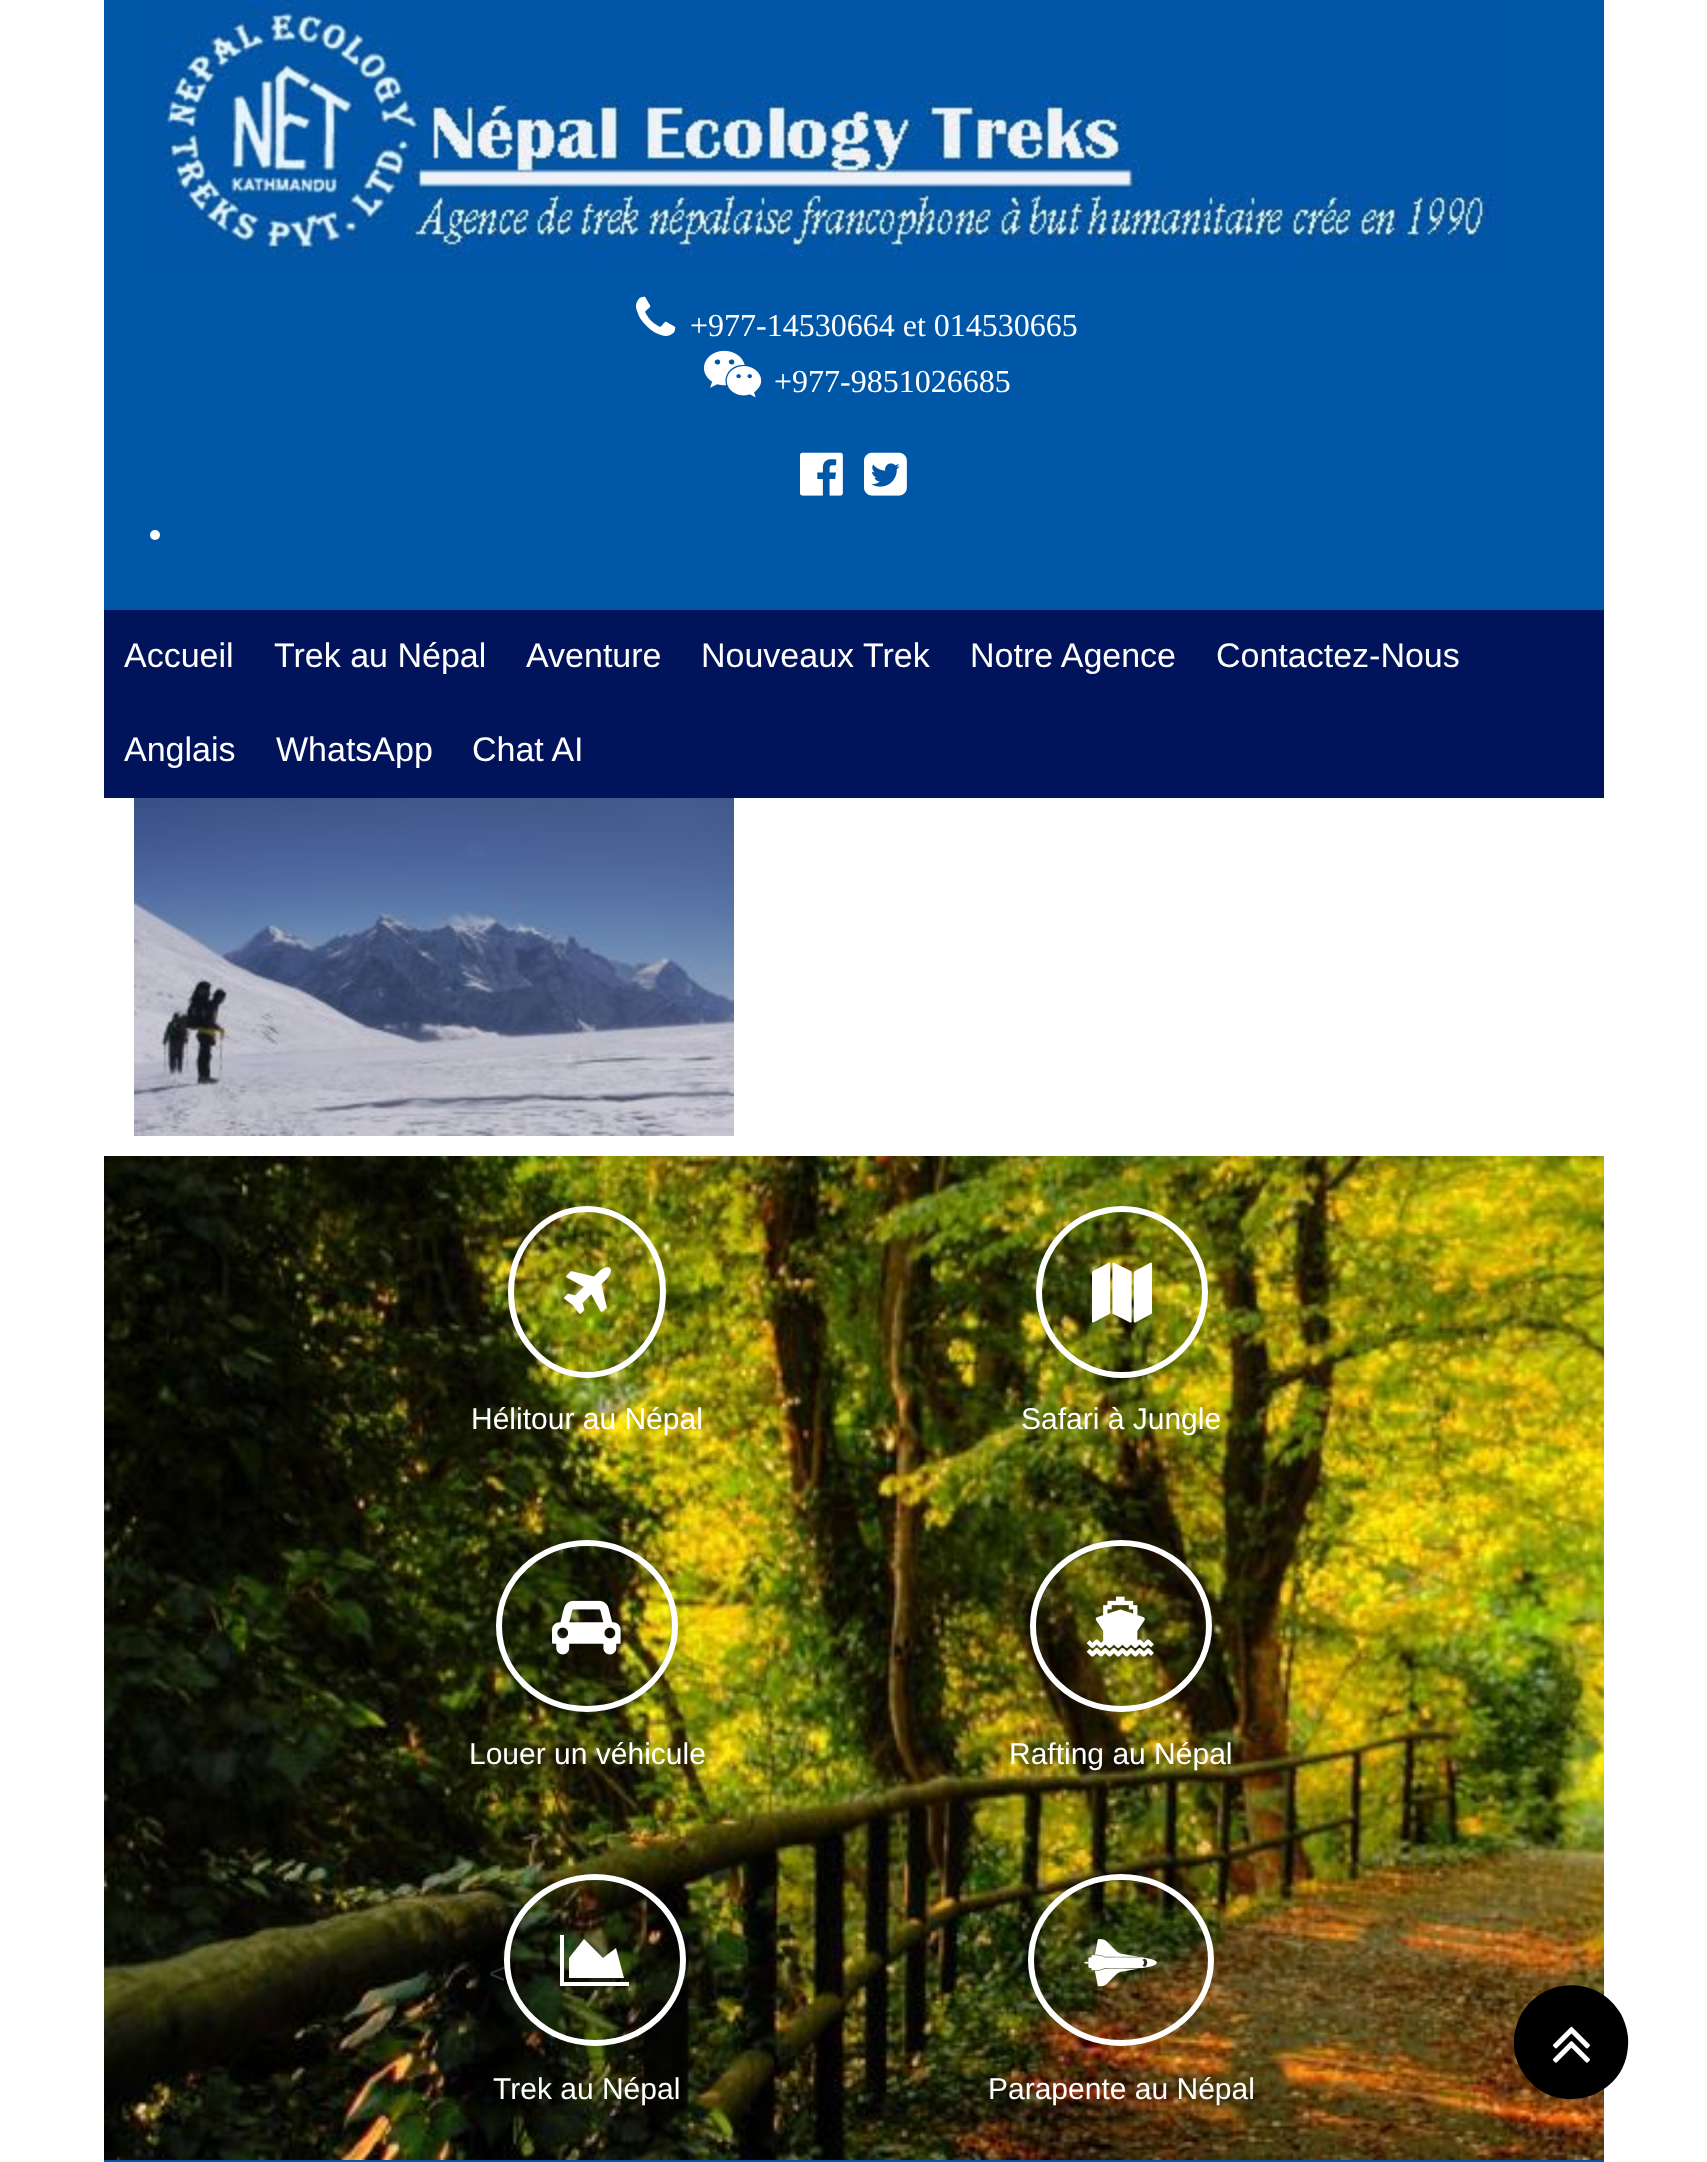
<svg xmlns="http://www.w3.org/2000/svg" width="1707" height="2162">
<style>
.a{font:32px Liberation Serif;fill:#fff}
.b{font:34px Liberation Sans;fill:#fff}
.c{font:30px Liberation Sans;fill:#fff}
.d{font:28px Liberation Sans;fill:#333}
</style>
<rect width="100%" height="100%" fill="#fff"/>
<path fill="#0057a7" d="M104 0h1500v610H104z"/>
<image href="1.png" x="150" y="0" width="1356" height="264"/>
<image href="2.png" x="636" y="296" width="40" height="40"/>
<image href="3.png" x="704" y="350" width="58" height="48"/>
<image href="4.png" x="800" y="452" width="43" height="44"/>
<image href="5.png" x="864" y="452" width="43" height="44"/>
<circle fill="#fffffe" cx="155" cy="535" r="5"/>
<path fill="#01135b" d="M104 610h1500v188H104z"/>
<image href="6.png" x="134" y="798" width="600" height="338"/>
<image href="7.png" x="104" y="1156" width="1500" height="1004"/>
<path fill="none" stroke="#fff" stroke-width="6" d="M587 1209c42 0 76 37 76 83c0 46-34 83-76 83c-42 0-76-37-76-83c0-46 34-83 76-83z"/>
<image href="8.png" x="564" y="1267" width="47" height="47"/>
<circle fill="none" stroke="#fff" stroke-width="6" cx="1122" cy="1292" r="83"/>
<image href="9.png" x="1092" y="1262" width="60" height="61"/>
<path fill="none" stroke="#fff" stroke-width="6" d="M587 1543c48.5 0 88 37 88 83c0 46-39.5 83-88 83c-48.5 0-88-37-88-83c0-46 39.5-83 88-83z"/>
<image href="10.png" x="552" y="1600" width="69" height="55"/>
<path fill="none" stroke="#fff" stroke-width="6" d="M1121 1543c48.5 0 88 37 88 83c0 46-39.5 83-88 83c-48.5 0-88-37-88-83c0-46 39.5-83 88-83z"/>
<image href="11.png" x="1086" y="1596" width="68" height="61"/>
<path fill="none" stroke="#fff" stroke-width="6" d="M595 1877c48.5 0 88 37 88 83c0 46-39.5 83-88 83c-48.5 0-88-37-88-83c0-46 39.5-83 88-83z"/>
<path fill="#fff" d="M629 1982v4h-69v-51h4v47zm-13-34l8 30h-55v-20l15-19l19 19z"/>
<path fill="none" stroke="#fff" stroke-width="6" d="M1121 1877c49.5 0 90 37 90 83c0 46-40.5 83-90 83c-49.5 0-90-37-90-83c0-46 40.5-83 90-83z"/>
<image href="12.png" x="1084" y="1939" width="73" height="48"/>
<path fill="#0856a1" d="M104 2160h1500v2H104z"/>
<path fill="#000" d="M1621 2014c5 10 8 21 7 32c-3 56-78 73-106 25c-6-10-9-21-8-32c4-57 78-74 107-25z"/>
<image href="13.png" x="1552" y="2026" width="38" height="37"/>
<text class="a" x="690" y="336">+977-14530664 et 014530665</text>
<text class="a" x="774" y="392">+977-9851026685</text>
<text class="b" x="124" y="667">Accueil</text>
<text class="b" x="274" y="667">Trek au Népal</text>
<text class="b" x="526" y="667">Aventure</text>
<text class="b" x="701" y="667">Nouveaux Trek</text>
<text class="b" x="970" y="667">Notre Agence</text>
<text class="b" x="1216" y="667">Contactez-Nous</text>
<text class="b" x="124" y="761">Anglais</text>
<text class="b" x="276" y="761">WhatsApp</text>
<text class="b" x="472" y="761">Chat AI</text>
<text class="c" x="471" y="1429">Hélitour au Népal</text>
<text class="c" x="1021" y="1429">Safari à Jungle</text>
<text class="c" x="469" y="1764">Louer un véhicule</text>
<text class="c" x="1009" y="1764">Rafting au Népal</text>
<text class="d" x="489" y="1983">&lt;</text>
<text class="c" x="493" y="2099">Trek au Népal</text>
<text class="c" x="988" y="2099">Parapente au Népal</text>
</svg>
